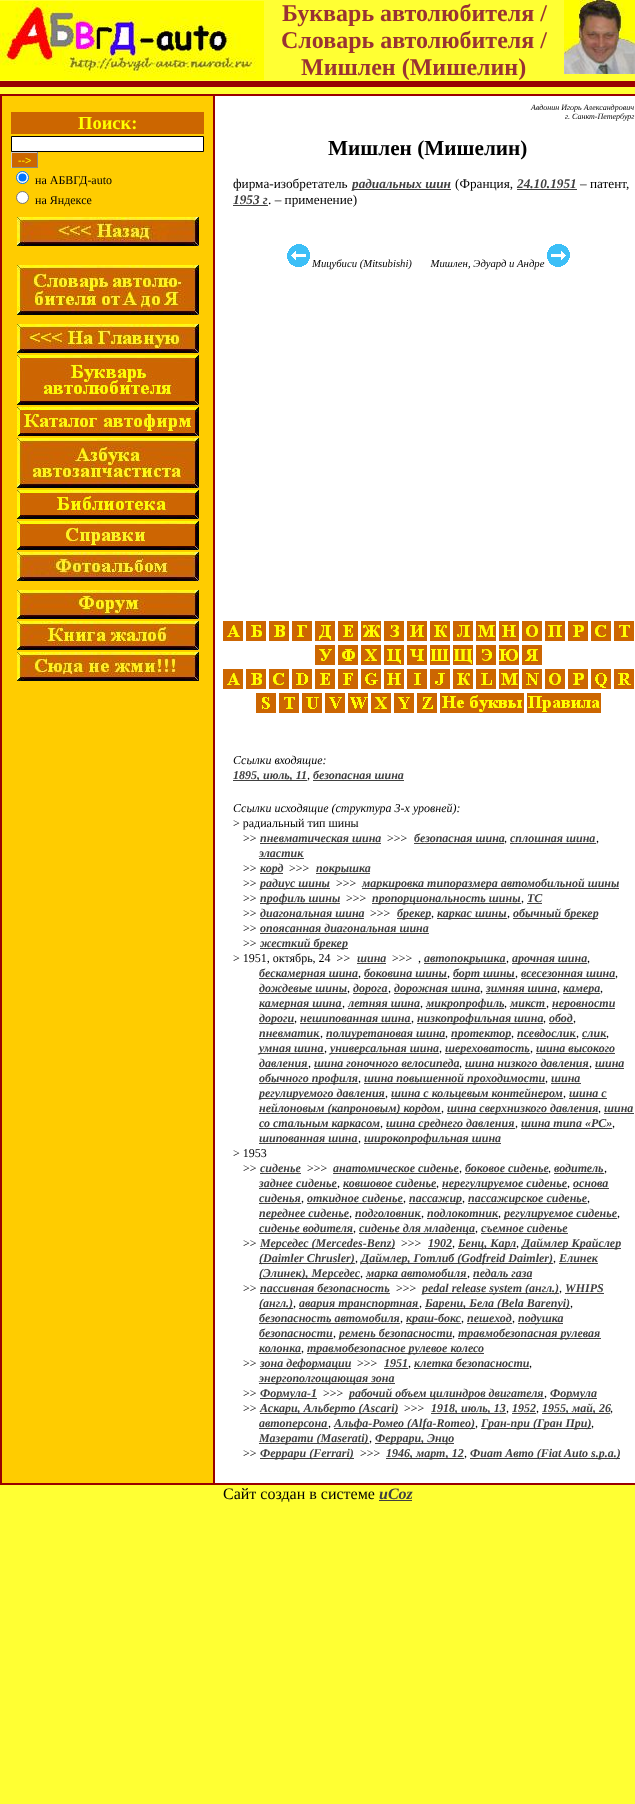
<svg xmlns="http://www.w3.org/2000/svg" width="635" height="1804">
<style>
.a{font:bold 24px Liberation Serif;fill:#933}
.b{font:bold 18.5px Liberation Serif;fill:#ff0}
.c{font:10.7px Liberation Sans;fill:#ff0}
.d{font:12px Liberation Serif;fill:#000}
.e{font:italic 8px Liberation Serif;fill:#000}
.f{font:bold 21.25px Liberation Serif;fill:#000}
.g{font:13.25px Liberation Serif;fill:#000}
.h{font:italic bold 13.25px Liberation Serif;fill:#404040}
.i{font:italic 10.7px Liberation Serif;fill:#000}
.j{font:italic 12px Liberation Serif;fill:#000}
.k{font:italic bold 12px Liberation Serif;fill:#404040}
.l{font:16px Liberation Serif;fill:#000}
.m{font:italic bold 16px Liberation Serif;fill:#404040}
</style>
<rect width="100%" height="100%" fill="#ff3"/>
<image href="1.png" x="0" y="1" width="264" height="79"/>
<image href="2.png" x="564" y="0" width="71" height="74"/>
<path fill="#900" d="M0 81h635v6H0z"/>
<path fill="#900" d="M0 94h635v1391H0z"/>
<path fill="#fc0" d="M2 96h211v1387H2z"/>
<path fill="#c60" d="M11 112h193v22H11z"/>
<path fill="#fff" stroke="#000" d="M11.5 136.5h192v15H11.5z"/>
<path fill="#c60" d="M12 153h25v14H12z"/>
<path fill="#ccc" d="M11 152h27v1H11z"/>
<path fill="#888" d="M37 152h1v16H37z"/>
<path fill="#888" d="M11 167h27v1H11z"/>
<path fill="#ccc" d="M11 152h1v16H11z"/>
<circle fill="#fff" stroke="#0075ff" cx="22.5" cy="177.5" r="6"/>
<circle fill="#0075ff" cx="22.5" cy="177.5" r="4"/>
<circle fill="#fff" stroke="#767676" cx="22.5" cy="197.5" r="6"/>
<image href="3.png" x="17" y="217" width="182" height="29"/>
<image href="4.png" x="17" y="265" width="182" height="50"/>
<image href="5.png" x="17" y="324" width="182" height="29"/>
<image href="6.png" x="17" y="355" width="182" height="50"/>
<image href="7.png" x="17" y="407" width="182" height="29"/>
<image href="8.png" x="17" y="438" width="182" height="50"/>
<image href="9.png" x="17" y="490" width="182" height="29"/>
<image href="10.png" x="17" y="521" width="182" height="29"/>
<image href="11.png" x="17" y="552" width="182" height="29"/>
<image href="12.png" x="17" y="590" width="182" height="29"/>
<image href="13.png" x="17" y="621" width="182" height="29"/>
<image href="14.png" x="17" y="652" width="182" height="29"/>
<path fill="#fff" d="M215 96h420v1387H215z"/>
<path fill="#404040" d="M352 189h99v1H352z"/>
<path fill="#404040" d="M517 189h60v1H517z"/>
<path fill="#404040" d="M233 205h35v1H233z"/>
<image href="15.png" x="287" y="244" width="23" height="23"/>
<image href="16.png" x="547" y="244" width="23" height="23"/>
<image href="17.png" x="223" y="621" width="20" height="20"/>
<image href="18.png" x="246" y="621" width="20" height="20"/>
<image href="19.png" x="269" y="621" width="20" height="20"/>
<image href="20.png" x="292" y="621" width="20" height="20"/>
<image href="21.png" x="315" y="621" width="20" height="20"/>
<image href="22.png" x="338" y="621" width="20" height="20"/>
<image href="23.png" x="361" y="621" width="20" height="20"/>
<image href="24.png" x="384" y="621" width="20" height="20"/>
<image href="25.png" x="407" y="621" width="20" height="20"/>
<image href="26.png" x="430" y="621" width="20" height="20"/>
<image href="27.png" x="453" y="621" width="20" height="20"/>
<image href="28.png" x="476" y="621" width="20" height="20"/>
<image href="29.png" x="499" y="621" width="20" height="20"/>
<image href="30.png" x="522" y="621" width="20" height="20"/>
<image href="31.png" x="545" y="621" width="20" height="20"/>
<image href="32.png" x="568" y="621" width="20" height="20"/>
<image href="33.png" x="591" y="621" width="20" height="20"/>
<image href="34.png" x="614" y="621" width="20" height="20"/>
<image href="35.png" x="315" y="645" width="20" height="20"/>
<image href="36.png" x="338" y="645" width="20" height="20"/>
<image href="37.png" x="361" y="645" width="20" height="20"/>
<image href="38.png" x="384" y="645" width="20" height="20"/>
<image href="39.png" x="407" y="645" width="20" height="20"/>
<image href="40.png" x="430" y="645" width="20" height="20"/>
<image href="41.png" x="453" y="645" width="20" height="20"/>
<image href="42.png" x="476" y="645" width="20" height="20"/>
<image href="43.png" x="499" y="645" width="20" height="20"/>
<image href="44.png" x="522" y="645" width="20" height="20"/>
<image href="17.png" x="223" y="669" width="20" height="20"/>
<image href="19.png" x="246" y="669" width="20" height="20"/>
<image href="33.png" x="269" y="669" width="20" height="20"/>
<image href="45.png" x="292" y="669" width="20" height="20"/>
<image href="22.png" x="315" y="669" width="20" height="20"/>
<image href="46.png" x="338" y="669" width="20" height="20"/>
<image href="47.png" x="361" y="669" width="20" height="20"/>
<image href="29.png" x="384" y="669" width="20" height="20"/>
<image href="48.png" x="407" y="669" width="20" height="20"/>
<image href="49.png" x="430" y="669" width="20" height="20"/>
<image href="26.png" x="453" y="669" width="20" height="20"/>
<image href="50.png" x="476" y="669" width="20" height="20"/>
<image href="28.png" x="499" y="669" width="20" height="20"/>
<image href="51.png" x="522" y="669" width="20" height="20"/>
<image href="30.png" x="545" y="669" width="20" height="20"/>
<image href="32.png" x="568" y="669" width="20" height="20"/>
<image href="52.png" x="591" y="669" width="20" height="20"/>
<image href="53.png" x="614" y="669" width="20" height="20"/>
<image href="54.png" x="256" y="693" width="20" height="20"/>
<image href="34.png" x="279" y="693" width="20" height="20"/>
<image href="55.png" x="302" y="693" width="20" height="20"/>
<image href="56.png" x="325" y="693" width="20" height="20"/>
<image href="57.png" x="348" y="693" width="20" height="20"/>
<image href="37.png" x="371" y="693" width="20" height="20"/>
<image href="58.png" x="394" y="693" width="20" height="20"/>
<image href="59.png" x="417" y="693" width="20" height="20"/>
<image href="60.png" x="440" y="693" width="84" height="20"/>
<image href="61.png" x="527" y="693" width="74" height="20"/>
<path fill="#404040" d="M233 780h74v1H233z"/>
<path fill="#404040" d="M313 780h91v1H313z"/>
<path fill="#404040" d="M260 843h121v1H260z"/>
<path fill="#404040" d="M414 843h90v1H414z"/>
<path fill="#404040" d="M510 843h86v1H510z"/>
<path fill="#404040" d="M259 858h45v1H259z"/>
<path fill="#404040" d="M260 873h23v1H260z"/>
<path fill="#404040" d="M316 873h54v1H316z"/>
<path fill="#404040" d="M260 888h70v1H260z"/>
<path fill="#404040" d="M362 888h257v1H362z"/>
<path fill="#404040" d="M260 903h80v1H260z"/>
<path fill="#404040" d="M372 903h149v1H372z"/>
<path fill="#404040" d="M527 903h15v1H527z"/>
<path fill="#404040" d="M260 918h104v1H260z"/>
<path fill="#404040" d="M397 918h34v1H397z"/>
<path fill="#404040" d="M437 918h70v1H437z"/>
<path fill="#404040" d="M513 918h85v1H513z"/>
<path fill="#404040" d="M260 933h169v1H260z"/>
<path fill="#404040" d="M260 948h88v1H260z"/>
<path fill="#404040" d="M357 963h29v1H357z"/>
<path fill="#404040" d="M424 963h82v1H424z"/>
<path fill="#404040" d="M512 963h75v1H512z"/>
<path fill="#404040" d="M259 978h99v1H259z"/>
<path fill="#404040" d="M364 978h83v1H364z"/>
<path fill="#404040" d="M453 978h62v1H453z"/>
<path fill="#404040" d="M521 978h94v1H521z"/>
<path fill="#404040" d="M259 993h88v1H259z"/>
<path fill="#404040" d="M353 993h35v1H353z"/>
<path fill="#404040" d="M394 993h86v1H394z"/>
<path fill="#404040" d="M486 993h71v1H486z"/>
<path fill="#404040" d="M563 993h37v1H563z"/>
<path fill="#404040" d="M259 1008h83v1H259z"/>
<path fill="#404040" d="M348 1008h72v1H348z"/>
<path fill="#404040" d="M426 1008h78v1H426z"/>
<path fill="#404040" d="M510 1008h36v1H510z"/>
<path fill="#404040" d="M552 1008h63v1H552z"/>
<path fill="#404040" d="M259 1023h35v1H259z"/>
<path fill="#404040" d="M300 1023h111v1H300z"/>
<path fill="#404040" d="M417 1023h126v1H417z"/>
<path fill="#404040" d="M549 1023h24v1H549z"/>
<path fill="#404040" d="M259 1038h61v1H259z"/>
<path fill="#404040" d="M326 1038h119v1H326z"/>
<path fill="#404040" d="M451 1038h60v1H451z"/>
<path fill="#404040" d="M517 1038h59v1H517z"/>
<path fill="#404040" d="M582 1038h24v1H582z"/>
<path fill="#404040" d="M259 1053h65v1H259z"/>
<path fill="#404040" d="M330 1053h109v1H330z"/>
<path fill="#404040" d="M445 1053h85v1H445z"/>
<path fill="#404040" d="M536 1053h79v1H536z"/>
<path fill="#404040" d="M259 1068h49v1H259z"/>
<path fill="#404040" d="M314 1068h145v1H314z"/>
<path fill="#404040" d="M465 1068h124v1H465z"/>
<path fill="#404040" d="M595 1068h29v1H595z"/>
<path fill="#404040" d="M259 1083h99v1H259z"/>
<path fill="#404040" d="M364 1083h181v1H364z"/>
<path fill="#404040" d="M551 1083h30v1H551z"/>
<path fill="#404040" d="M259 1098h126v1H259z"/>
<path fill="#404040" d="M391 1098h172v1H391z"/>
<path fill="#404040" d="M569 1098h38v1H569z"/>
<path fill="#404040" d="M259 1113h182v1H259z"/>
<path fill="#404040" d="M447 1113h151v1H447z"/>
<path fill="#404040" d="M604 1113h30v1H604z"/>
<path fill="#404040" d="M259 1128h121v1H259z"/>
<path fill="#404040" d="M386 1128h129v1H386z"/>
<path fill="#404040" d="M521 1128h91v1H521z"/>
<path fill="#404040" d="M259 1143h99v1H259z"/>
<path fill="#404040" d="M364 1143h137v1H364z"/>
<path fill="#404040" d="M260 1173h41v1H260z"/>
<path fill="#404040" d="M333 1173h126v1H333z"/>
<path fill="#404040" d="M465 1173h83v1H465z"/>
<path fill="#404040" d="M554 1173h50v1H554z"/>
<path fill="#404040" d="M259 1188h78v1H259z"/>
<path fill="#404040" d="M343 1188h93v1H343z"/>
<path fill="#404040" d="M442 1188h125v1H442z"/>
<path fill="#404040" d="M573 1188h36v1H573z"/>
<path fill="#404040" d="M259 1203h42v1H259z"/>
<path fill="#404040" d="M307 1203h96v1H307z"/>
<path fill="#404040" d="M409 1203h53v1H409z"/>
<path fill="#404040" d="M468 1203h119v1H468z"/>
<path fill="#404040" d="M259 1218h90v1H259z"/>
<path fill="#404040" d="M355 1218h66v1H355z"/>
<path fill="#404040" d="M427 1218h71v1H427z"/>
<path fill="#404040" d="M504 1218h113v1H504z"/>
<path fill="#404040" d="M259 1233h94v1H259z"/>
<path fill="#404040" d="M359 1233h116v1H359z"/>
<path fill="#404040" d="M481 1233h87v1H481z"/>
<path fill="#404040" d="M260 1248h135v1H260z"/>
<path fill="#404040" d="M428 1248h24v1H428z"/>
<path fill="#404040" d="M458 1248h58v1H458z"/>
<path fill="#404040" d="M522 1248h99v1H522z"/>
<path fill="#404040" d="M259 1263h96v1H259z"/>
<path fill="#404040" d="M361 1263h192v1H361z"/>
<path fill="#404040" d="M559 1263h39v1H559z"/>
<path fill="#404040" d="M259 1278h101v1H259z"/>
<path fill="#404040" d="M366 1278h101v1H366z"/>
<path fill="#404040" d="M473 1278h59v1H473z"/>
<path fill="#404040" d="M260 1293h130v1H260z"/>
<path fill="#404040" d="M422 1293h137v1H422z"/>
<path fill="#404040" d="M565 1293h39v1H565z"/>
<path fill="#404040" d="M259 1308h34v1H259z"/>
<path fill="#404040" d="M299 1308h120v1H299z"/>
<path fill="#404040" d="M425 1308h145v1H425z"/>
<path fill="#404040" d="M259 1323h141v1H259z"/>
<path fill="#404040" d="M406 1323h55v1H406z"/>
<path fill="#404040" d="M467 1323h45v1H467z"/>
<path fill="#404040" d="M518 1323h45v1H518z"/>
<path fill="#404040" d="M259 1338h74v1H259z"/>
<path fill="#404040" d="M339 1338h113v1H339z"/>
<path fill="#404040" d="M458 1338h143v1H458z"/>
<path fill="#404040" d="M259 1353h42v1H259z"/>
<path fill="#404040" d="M307 1353h177v1H307z"/>
<path fill="#404040" d="M260 1368h91v1H260z"/>
<path fill="#404040" d="M384 1368h24v1H384z"/>
<path fill="#404040" d="M414 1368h115v1H414z"/>
<path fill="#404040" d="M259 1383h136v1H259z"/>
<path fill="#404040" d="M260 1398h57v1H260z"/>
<path fill="#404040" d="M349 1398h195v1H349z"/>
<path fill="#404040" d="M550 1398h47v1H550z"/>
<path fill="#404040" d="M260 1413h138v1H260z"/>
<path fill="#404040" d="M431 1413h75v1H431z"/>
<path fill="#404040" d="M512 1413h24v1H512z"/>
<path fill="#404040" d="M542 1413h68v1H542z"/>
<path fill="#404040" d="M259 1428h69v1H259z"/>
<path fill="#404040" d="M334 1428h141v1H334z"/>
<path fill="#404040" d="M481 1428h110v1H481z"/>
<path fill="#404040" d="M259 1443h110v1H259z"/>
<path fill="#404040" d="M375 1443h79v1H375z"/>
<path fill="#404040" d="M260 1458h94v1H260z"/>
<path fill="#404040" d="M386 1458h78v1H386z"/>
<path fill="#404040" d="M470 1458h150v1H470z"/>
<path fill="#404040" d="M379 1500h33v1H379z"/>
<text class="a" x="282" y="21">Букварь автолюбителя /</text>
<text class="a" x="281" y="48">Словарь автолюбителя /</text>
<text class="a" x="301" y="75">Мишлен (Мишелин)</text>
<text class="b" x="78" y="129">Поиск:</text>
<text class="c" x="18" y="164">--&gt;</text>
<text class="d" x="35" y="184">на АБВГД-auto</text>
<text class="d" x="35" y="204">на Яндексе</text>
<text class="e" x="531" y="110">Авдонин Игорь Александрович</text>
<text class="e" x="565" y="119">г. Санкт-Петербург</text>
<text class="f" x="328" y="155">Мишлен (Мишелин)</text>
<text class="g" x="233" y="188">фирма-изобретатель</text>
<text class="h" x="352" y="188">радиальных шин</text>
<text class="g" x="455" y="188">(Франция,</text>
<text class="h" x="517" y="188">24.10.1951</text>
<text class="g" x="580" y="188">– патент,</text>
<text class="h" x="233" y="204">1953 г</text>
<text class="g" x="268" y="204">. – применение)</text>
<text class="i" xml:space="preserve" x="312" y="267">Мицубиси (Mitsubishi)       Мишлен, Эдуард и Андре</text>
<text class="j" x="233" y="764">Ссылки входящие:</text>
<text class="k" x="233" y="779">1895, июль, 11</text>
<text class="j" x="307" y="779">,</text>
<text class="k" x="313" y="779">безопасная шина</text>
<text class="j" x="233" y="812">Ссылки исходящие (структура 3-х уровней):</text>
<text class="d" x="233" y="827">&gt; радиальный тип шины</text>
<text class="d" x="243" y="842">&gt;&gt;</text>
<text class="k" x="260" y="842">пневматическая шина</text>
<text class="d" x="387" y="842">&gt;&gt;&gt;</text>
<text class="k" x="414" y="842">безопасная шина</text>
<text class="d" x="504" y="842">,</text>
<text class="k" x="510" y="842">сплошная шина</text>
<text class="d" x="596" y="842">,</text>
<text class="k" x="259" y="857">эластик</text>
<text class="d" x="243" y="872">&gt;&gt;</text>
<text class="k" x="260" y="872">корд</text>
<text class="d" x="289" y="872">&gt;&gt;&gt;</text>
<text class="k" x="316" y="872">покрышка</text>
<text class="d" x="243" y="887">&gt;&gt;</text>
<text class="k" x="260" y="887">радиус шины</text>
<text class="d" x="336" y="887">&gt;&gt;&gt;</text>
<text class="k" x="362" y="887">маркировка типоразмера автомобильной шины</text>
<text class="d" x="243" y="902">&gt;&gt;</text>
<text class="k" x="260" y="902">профиль шины</text>
<text class="d" x="346" y="902">&gt;&gt;&gt;</text>
<text class="k" x="372" y="902">пропорциональность шины</text>
<text class="d" x="521" y="902">,</text>
<text class="k" x="527" y="902">ТС</text>
<text class="d" x="243" y="917">&gt;&gt;</text>
<text class="k" x="260" y="917">диагональная шина</text>
<text class="d" x="370" y="917">&gt;&gt;&gt;</text>
<text class="k" x="397" y="917">брекер</text>
<text class="d" x="431" y="917">,</text>
<text class="k" x="437" y="917">каркас шины</text>
<text class="d" x="507" y="917">,</text>
<text class="k" x="513" y="917">обычный брекер</text>
<text class="d" x="243" y="932">&gt;&gt;</text>
<text class="k" x="260" y="932">опоясанная диагональная шина</text>
<text class="d" x="243" y="947">&gt;&gt;</text>
<text class="k" x="260" y="947">жесткий брекер</text>
<text class="d" xml:space="preserve" x="233" y="962">&gt; 1951, октябрь, 24  &gt;&gt;</text>
<text class="k" x="357" y="962">шина</text>
<text class="d" x="392" y="962">&gt;&gt;&gt;</text>
<text class="d" x="418" y="962">,</text>
<text class="k" x="424" y="962">автопокрышка</text>
<text class="d" x="506" y="962">,</text>
<text class="k" x="512" y="962">арочная шина</text>
<text class="d" x="587" y="962">,</text>
<text class="k" x="259" y="977">бескамерная шина</text>
<text class="d" x="358" y="977">,</text>
<text class="k" x="364" y="977">боковина шины</text>
<text class="d" x="447" y="977">,</text>
<text class="k" x="453" y="977">борт шины</text>
<text class="d" x="515" y="977">,</text>
<text class="k" x="521" y="977">всесезонная шина</text>
<text class="d" x="615" y="977">,</text>
<text class="k" x="259" y="992">дождевые шины</text>
<text class="d" x="347" y="992">,</text>
<text class="k" x="353" y="992">дорога</text>
<text class="d" x="388" y="992">,</text>
<text class="k" x="394" y="992">дорожная шина</text>
<text class="d" x="480" y="992">,</text>
<text class="k" x="486" y="992">зимняя шина</text>
<text class="d" x="557" y="992">,</text>
<text class="k" x="563" y="992">камера</text>
<text class="d" x="600" y="992">,</text>
<text class="k" x="259" y="1007">камерная шина</text>
<text class="d" x="342" y="1007">,</text>
<text class="k" x="348" y="1007">летняя шина</text>
<text class="d" x="420" y="1007">,</text>
<text class="k" x="426" y="1007">микропрофиль</text>
<text class="d" x="504" y="1007">,</text>
<text class="k" x="510" y="1007">микст</text>
<text class="d" x="546" y="1007">,</text>
<text class="k" x="552" y="1007">неровности</text>
<text class="k" x="259" y="1022">дороги</text>
<text class="d" x="294" y="1022">,</text>
<text class="k" x="300" y="1022">нешипованная шина</text>
<text class="d" x="411" y="1022">,</text>
<text class="k" x="417" y="1022">низкопрофильная шина</text>
<text class="d" x="543" y="1022">,</text>
<text class="k" x="549" y="1022">обод</text>
<text class="d" x="573" y="1022">,</text>
<text class="k" x="259" y="1037">пневматик</text>
<text class="d" x="320" y="1037">,</text>
<text class="k" x="326" y="1037">полиуретановая шина</text>
<text class="d" x="445" y="1037">,</text>
<text class="k" x="451" y="1037">протектор</text>
<text class="d" x="511" y="1037">,</text>
<text class="k" x="517" y="1037">псевдослик</text>
<text class="d" x="576" y="1037">,</text>
<text class="k" x="582" y="1037">слик</text>
<text class="d" x="606" y="1037">,</text>
<text class="k" x="259" y="1052">умная шина</text>
<text class="d" x="324" y="1052">,</text>
<text class="k" x="330" y="1052">универсальная шина</text>
<text class="d" x="439" y="1052">,</text>
<text class="k" x="445" y="1052">шереховатость</text>
<text class="d" x="530" y="1052">,</text>
<text class="k" x="536" y="1052">шина высокого</text>
<text class="k" x="259" y="1067">давления</text>
<text class="d" x="308" y="1067">,</text>
<text class="k" x="314" y="1067">шина гоночного велосипеда</text>
<text class="d" x="459" y="1067">,</text>
<text class="k" x="465" y="1067">шина низкого давления</text>
<text class="d" x="589" y="1067">,</text>
<text class="k" x="595" y="1067">шина</text>
<text class="k" x="259" y="1082">обычного профиля</text>
<text class="d" x="358" y="1082">,</text>
<text class="k" x="364" y="1082">шина повышенной проходимости</text>
<text class="d" x="545" y="1082">,</text>
<text class="k" x="551" y="1082">шина</text>
<text class="k" x="259" y="1097">регулируемого давления</text>
<text class="d" x="385" y="1097">,</text>
<text class="k" x="391" y="1097">шина с кольцевым контейнером</text>
<text class="d" x="563" y="1097">,</text>
<text class="k" x="569" y="1097">шина с</text>
<text class="k" x="259" y="1112">нейлоновым (капроновым) кордом</text>
<text class="d" x="441" y="1112">,</text>
<text class="k" x="447" y="1112">шина сверхнизкого давления</text>
<text class="d" x="598" y="1112">,</text>
<text class="k" x="604" y="1112">шина</text>
<text class="k" x="259" y="1127">со стальным каркасом</text>
<text class="d" x="380" y="1127">,</text>
<text class="k" x="386" y="1127">шина среднего давления</text>
<text class="d" x="515" y="1127">,</text>
<text class="k" x="521" y="1127">шина типа «РС»</text>
<text class="d" x="612" y="1127">,</text>
<text class="k" x="259" y="1142">шипованная шина</text>
<text class="d" x="358" y="1142">,</text>
<text class="k" x="364" y="1142">широкопрофильная шина</text>
<text class="d" x="233" y="1157">&gt; 1953</text>
<text class="d" x="243" y="1172">&gt;&gt;</text>
<text class="k" x="260" y="1172">сиденье</text>
<text class="d" x="307" y="1172">&gt;&gt;&gt;</text>
<text class="k" x="333" y="1172">анатомическое сиденье</text>
<text class="k" x="465" y="1172">боковое сиденье</text>
<text class="k" x="554" y="1172">водитель</text>
<text class="d" x="459" y="1172">,</text>
<text class="d" x="548" y="1172">,</text>
<text class="d" x="604" y="1172">,</text>
<text class="k" x="259" y="1187">заднее сиденье</text>
<text class="d" x="337" y="1187">,</text>
<text class="k" x="343" y="1187">ковшовое сиденье</text>
<text class="d" x="436" y="1187">,</text>
<text class="k" x="442" y="1187">нерегулируемое сиденье</text>
<text class="d" x="567" y="1187">,</text>
<text class="k" x="573" y="1187">основа</text>
<text class="k" x="259" y="1202">сиденья</text>
<text class="d" x="301" y="1202">,</text>
<text class="k" x="307" y="1202">откидное сиденье</text>
<text class="d" x="403" y="1202">,</text>
<text class="k" x="409" y="1202">пассажир</text>
<text class="d" x="462" y="1202">,</text>
<text class="k" x="468" y="1202">пассажирское сиденье</text>
<text class="d" x="587" y="1202">,</text>
<text class="k" x="259" y="1217">переднее сиденье</text>
<text class="d" x="349" y="1217">,</text>
<text class="k" x="355" y="1217">подголовник</text>
<text class="d" x="421" y="1217">,</text>
<text class="k" x="427" y="1217">подлокотник</text>
<text class="d" x="498" y="1217">,</text>
<text class="k" x="504" y="1217">регулируемое сиденье</text>
<text class="d" x="617" y="1217">,</text>
<text class="k" x="259" y="1232">сиденье водителя</text>
<text class="d" x="353" y="1232">,</text>
<text class="k" x="359" y="1232">сиденье для младенца</text>
<text class="d" x="475" y="1232">,</text>
<text class="k" x="481" y="1232">съемное сиденье</text>
<text class="d" x="243" y="1247">&gt;&gt;</text>
<text class="k" x="260" y="1247">Мерседес (Mercedes-Benz)</text>
<text class="d" x="401" y="1247">&gt;&gt;&gt;</text>
<text class="k" x="428" y="1247">1902</text>
<text class="k" x="458" y="1247">Бенц, Карл</text>
<text class="k" x="522" y="1247">Даймлер Крайслер</text>
<text class="d" x="452" y="1247">,</text>
<text class="d" x="516" y="1247">,</text>
<text class="k" x="259" y="1262">(Daimler Chrusler)</text>
<text class="d" x="355" y="1262">,</text>
<text class="k" x="361" y="1262">Даймлер, Готлиб (Godfreid Daimler)</text>
<text class="d" x="553" y="1262">,</text>
<text class="k" x="559" y="1262">Елинек</text>
<text class="k" x="259" y="1277">(Элинек), Мерседес</text>
<text class="d" x="360" y="1277">,</text>
<text class="k" x="366" y="1277">марка автомобиля</text>
<text class="d" x="467" y="1277">,</text>
<text class="k" x="473" y="1277">педаль газа</text>
<text class="d" x="243" y="1292">&gt;&gt;</text>
<text class="k" x="260" y="1292">пассивная безопасность</text>
<text class="d" x="396" y="1292">&gt;&gt;&gt;</text>
<text class="k" x="422" y="1292">pedal release system (англ.)</text>
<text class="k" x="565" y="1292">WHIPS</text>
<text class="d" x="559" y="1292">,</text>
<text class="k" x="259" y="1307">(англ.)</text>
<text class="d" x="293" y="1307">,</text>
<text class="k" x="299" y="1307">авария транспортная</text>
<text class="d" x="419" y="1307">,</text>
<text class="k" x="425" y="1307">Барени, Бела (Bela Barenyi)</text>
<text class="d" x="570" y="1307">,</text>
<text class="k" x="259" y="1322">безопасность автомобиля</text>
<text class="d" x="400" y="1322">,</text>
<text class="k" x="406" y="1322">краш-бокс</text>
<text class="d" x="461" y="1322">,</text>
<text class="k" x="467" y="1322">пешеход</text>
<text class="d" x="512" y="1322">,</text>
<text class="k" x="518" y="1322">подушка</text>
<text class="k" x="259" y="1337">безопасности</text>
<text class="d" x="333" y="1337">,</text>
<text class="k" x="339" y="1337">ремень безопасности</text>
<text class="d" x="452" y="1337">,</text>
<text class="k" x="458" y="1337">травмобезопасная рулевая</text>
<text class="k" x="259" y="1352">колонка</text>
<text class="d" x="301" y="1352">,</text>
<text class="k" x="307" y="1352">травмобезопасное рулевое колесо</text>
<text class="d" x="243" y="1367">&gt;&gt;</text>
<text class="k" x="260" y="1367">зона деформации</text>
<text class="d" x="357" y="1367">&gt;&gt;&gt;</text>
<text class="k" x="384" y="1367">1951</text>
<text class="k" x="414" y="1367">клетка безопасности</text>
<text class="d" x="408" y="1367">,</text>
<text class="d" x="529" y="1367">,</text>
<text class="k" x="259" y="1382">энергополгощающая зона</text>
<text class="d" x="243" y="1397">&gt;&gt;</text>
<text class="k" x="260" y="1397">Формула-1</text>
<text class="d" x="323" y="1397">&gt;&gt;&gt;</text>
<text class="k" x="349" y="1397">рабочий объем цилиндров двигателя</text>
<text class="k" x="550" y="1397">Формула</text>
<text class="d" x="544" y="1397">,</text>
<text class="d" x="243" y="1412">&gt;&gt;</text>
<text class="k" x="260" y="1412">Аскари, Альберто (Ascari)</text>
<text class="d" x="404" y="1412">&gt;&gt;&gt;</text>
<text class="k" x="431" y="1412">1918, июль, 13</text>
<text class="k" x="512" y="1412">1952</text>
<text class="k" x="542" y="1412">1955, май, 26</text>
<text class="d" x="506" y="1412">,</text>
<text class="d" x="536" y="1412">,</text>
<text class="d" x="610" y="1412">,</text>
<text class="k" x="259" y="1427">автоперсона</text>
<text class="d" x="328" y="1427">,</text>
<text class="k" x="334" y="1427">Альфа-Ромео (Alfa-Romeo)</text>
<text class="d" x="475" y="1427">,</text>
<text class="k" x="481" y="1427">Гран-при (Гран При)</text>
<text class="d" x="591" y="1427">,</text>
<text class="k" x="259" y="1442">Мазерати (Maserati)</text>
<text class="d" x="369" y="1442">,</text>
<text class="k" x="375" y="1442">Феррари, Энцо</text>
<text class="d" x="243" y="1457">&gt;&gt;</text>
<text class="k" x="260" y="1457">Феррари (Ferrari)</text>
<text class="d" x="360" y="1457">&gt;&gt;&gt;</text>
<text class="k" x="386" y="1457">1946, март, 12</text>
<text class="k" x="470" y="1457">Фиат Авто (Fiat Auto s.p.a.)</text>
<text class="d" x="464" y="1457">,</text>
<text class="l" x="223" y="1499">Сайт создан в системе</text>
<text class="m" x="379" y="1499">uCoz</text>
</svg>
